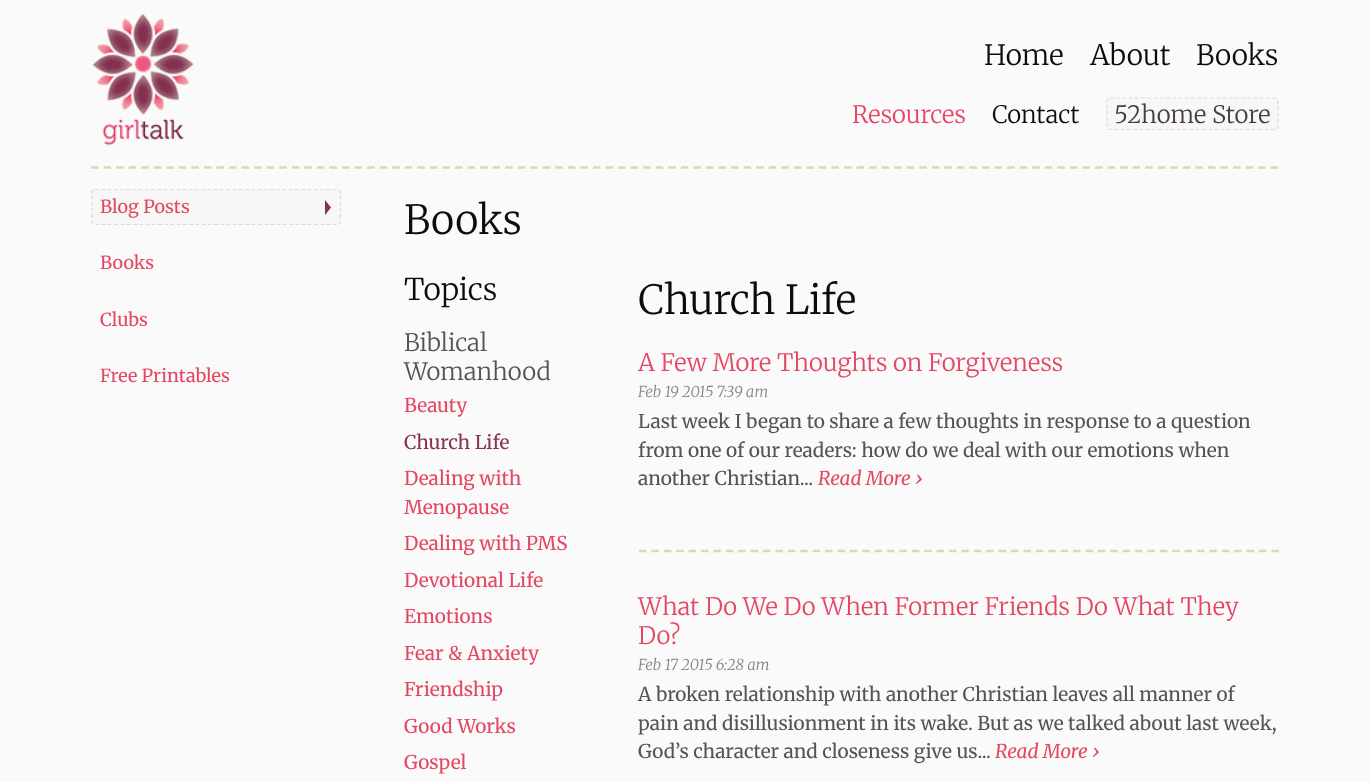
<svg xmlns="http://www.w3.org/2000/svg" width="1370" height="782">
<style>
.a{font:300 28px Merriweather;fill:#0d0c0c}
.b{font:300 24px Merriweather;fill:#e34762}
.c{font:300 24px Merriweather;fill:#0d0c0c}
.d{font:300 24px Merriweather;fill:#473d40}
.e{font:18px Merriweather;fill:#e34762}
.f{font:300 40px Merriweather;fill:#0d0c0c}
.g{font:300 30px Merriweather;fill:#0d0c0c}
.h{font:300 24px Merriweather;fill:#595252}
.i{font:19px Merriweather;fill:#e34762}
.j{font:19px Merriweather;fill:#873253}
.k{font:italic 300 15px Merriweather;fill:#8c8181}
.l{font:19px Merriweather;fill:#595252}
.m{font:italic 19px Merriweather;fill:#e34762}
</style>
<rect width="100%" height="100%" fill="#fafafa"/>
<path fill="none" stroke="#dbd8b4" stroke-width="2.5" stroke-dasharray="7.5 5.05" d="M91 167.5h1188"/>
<image href="1.png" x="92" y="13" width="102" height="133"/>
<rect fill="#f7f7f7" x="1106" y="98" width="173" height="32" rx="4"/>
<path fill="none" stroke="#dbdbdb" stroke-width="1.2" stroke-dasharray="3.75 2.5" d="M1110 98h165c1.5 0 3 1.5 3 3v25c0 2-1.5 3.5-3 3.5h-165c-1.5 0-3-1.5-3-3.5v-25c0-1.5 1.5-3 3-3z"/>
<rect fill="#f7f7f7" x="91" y="189" width="250" height="36" rx="4"/>
<path fill="none" stroke="#dbdbdb" stroke-width="1.2" stroke-dasharray="3.75 2.5" d="M95 189.5h242.5c1.5 0 3 1.5 3 3v28.5c0 2-1.5 3.5-3 3.5h-242.5c-1.5 0-3-1.5-3-3.5v-28.5c0-1.5 1.5-3 3-3z"/>
<path fill="#873253" d="M325 215v-15l6 7.5z"/>
<path fill="none" stroke="#dbd8b4" stroke-width="2.5" stroke-dasharray="7.5 4.9" d="M639 551h640"/>
<text class="a" x="984" y="65">Home</text>
<text class="a" x="1090" y="65">About</text>
<text class="a" x="1196" y="65">Books</text>
<text class="b" x="852" y="123">Resources</text>
<text class="c" x="992" y="123">Contact</text>
<text class="d" x="1114" y="123">52home Store</text>
<text class="e" x="100" y="213">Blog Posts</text>
<text class="e" x="100" y="269">Books</text>
<text class="e" x="100" y="326">Clubs</text>
<text class="e" x="100" y="382">Free Printables</text>
<text class="f" x="404" y="234">Books</text>
<text class="g" x="404" y="300">Topics</text>
<text class="h" x="404" y="351">Biblical</text>
<text class="h" x="404" y="380">Womanhood</text>
<text class="i" x="404" y="412">Beauty</text>
<text class="j" x="404" y="449">Church Life</text>
<text class="i" x="404" y="485">Dealing with</text>
<text class="i" x="404" y="514">Menopause</text>
<text class="i" x="404" y="550">Dealing with PMS</text>
<text class="i" x="404" y="587">Devotional Life</text>
<text class="i" x="404" y="623">Emotions</text>
<text class="i" x="404" y="660">Fear &amp; Anxiety</text>
<text class="i" x="404" y="696">Friendship</text>
<text class="i" x="404" y="733">Good Works</text>
<text class="i" x="404" y="769">Gospel</text>
<text class="f" x="638" y="314">Church Life</text>
<text class="b" x="638" y="371">A Few More Thoughts on Forgiveness</text>
<text class="k" x="638" y="397">Feb 19 2015 7:39 am</text>
<text class="l" x="638" y="428">Last week I began to share a few thoughts in response to a question</text>
<text class="l" x="638" y="457">from one of our readers: how do we deal with our emotions when</text>
<text class="l" x="638" y="485">another Christian...</text>
<text class="m" x="818" y="485">Read More ›</text>
<text class="b" x="638" y="615">What Do We Do When Former Friends Do What They</text>
<text class="b" x="638" y="644">Do?</text>
<text class="k" x="638" y="670">Feb 17 2015 6:28 am</text>
<text class="l" x="638" y="701">A broken relationship with another Christian leaves all manner of</text>
<text class="l" x="638" y="730">pain and disillusionment in its wake. But as we talked about last week,</text>
<text class="l" x="638" y="758">God’s character and closeness give us...</text>
<text class="m" x="995" y="758">Read More ›</text>
</svg>
